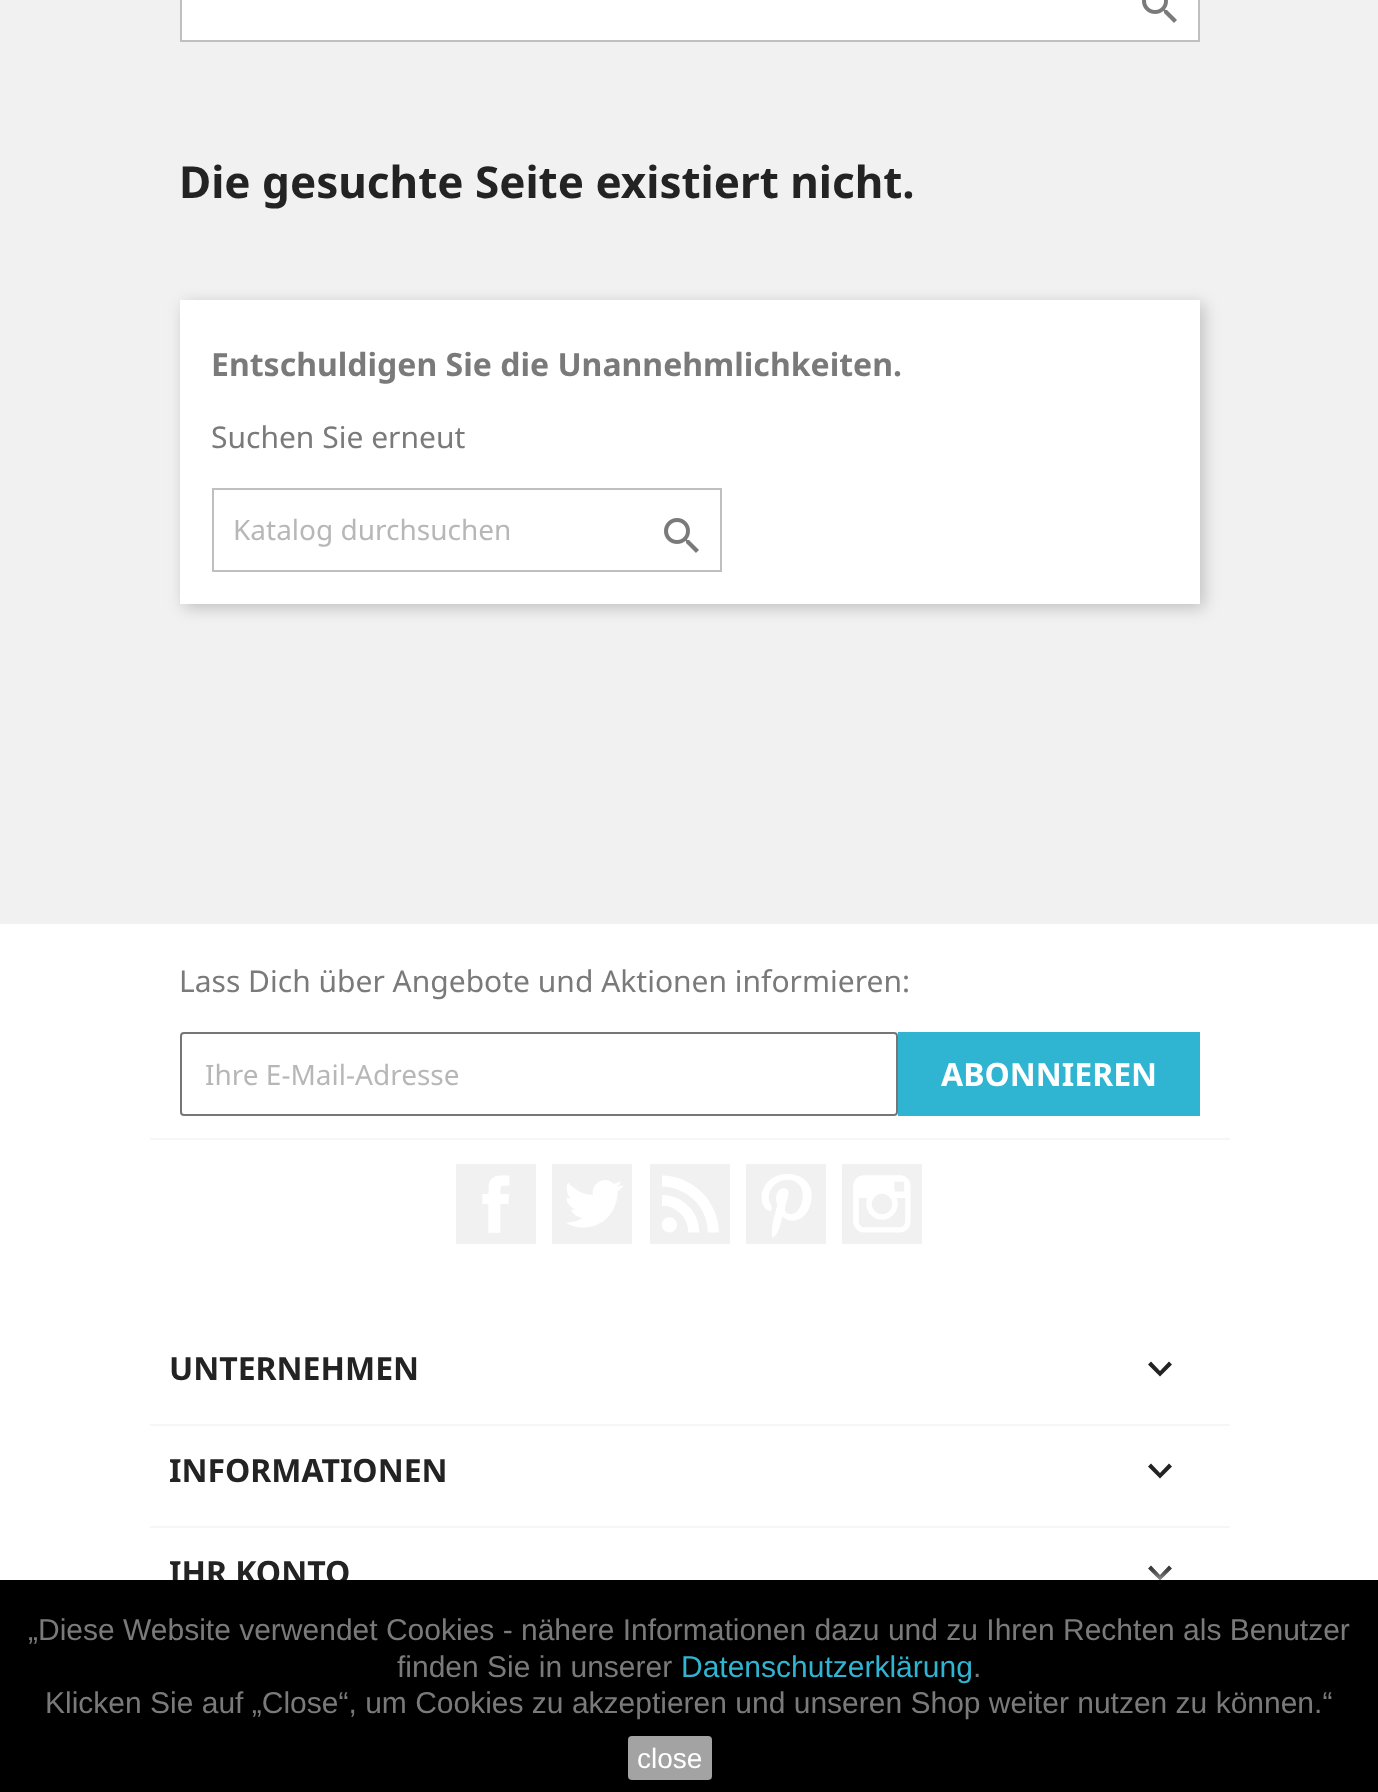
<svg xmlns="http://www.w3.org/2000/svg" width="1378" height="1792">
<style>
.a{font:bold 44px Noto Sans;fill:#232323}
.b{font:bold 32px Noto Sans;fill:#7a7a7a}
.c{font:30px Noto Sans;fill:#7a7a7a}
.d{font:28px Noto Sans;fill:#b7b7b7}
.e{font:bold 32px Noto Sans;fill:#fff}
.f{font:bold 32px Noto Sans;fill:#232323}
.g{font:30px Liberation Sans;fill:#7a7a7a}
.h{font:30px Liberation Sans;fill:#2fb5d2}
.i{font:28px Liberation Sans;fill:#fff}
</style>
<rect width="100%" height="100%" fill="#fff"/>
<path fill="#f1f1f1" d="M0 0h1378v924H0z"/>
<path fill="#fff" stroke="#bfbfbf" stroke-width="2" d="M181 -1h1018v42H181z"/>
<image href="1.png" x="1142" y="0" width="35" height="23"/>
<path fill="#00000033" filter="blur(8px)" d="M184 304h1020v304H184z"/>
<path fill="#fff" d="M180 300h1020v304H180z"/>
<path fill="none" stroke="#bfbfbf" stroke-width="2" d="M213 489h508v82H213z"/>
<image href="2.png" x="664" y="518" width="35" height="35"/>
<path fill="#f6f6f6" d="M150 1138h1080v2H150z"/>
<rect fill="none" stroke="#767676" stroke-width="2" x="181" y="1033" width="716" height="82" rx="3"/>
<path fill="#2fb5d2" d="M898 1032h302v84H898z"/>
<path fill="#f1f1f1" d="M456 1164h80v80H456z"/>
<image href="3.png" x="482" y="1175" width="28" height="58"/>
<path fill="#f1f1f1" d="M552 1164h80v80H552z"/>
<image href="4.png" x="566" y="1180" width="57" height="48"/>
<path fill="#f1f1f1" d="M650 1164h80v80H650z"/>
<image href="5.png" x="662" y="1175" width="57" height="58"/>
<path fill="#f1f1f1" d="M746 1164h80v80H746z"/>
<image href="6.png" x="761" y="1174" width="51" height="64"/>
<path fill="#f1f1f1" d="M842 1164h80v80H842z"/>
<image href="7.png" x="853" y="1175" width="58" height="58"/>
<path fill="#f6f6f6" d="M150 1424h1080v2H150z"/>
<path fill="#232323" d="M1151 1361.5l9 9.5l9-9.5l3 3l-12 12l-12-12z"/>
<path fill="#f6f6f6" d="M150 1526h1080v2H150z"/>
<path fill="#232323" d="M1151 1463.5l9 9.5l9-9.5l3 3l-12 12l-12-12z"/>
<path fill="#232323" d="M1151 1565.5l9 9.5l9-9.5l3 3l-12 12l-12-12z"/>
<path fill="#fff" filter="blur(10px)" d="M0 1580h1378v212H0z"/>
<text class="a" x="179" y="198">Die gesuchte Seite existiert nicht.</text>
<text class="b" x="211" y="376">Entschuldigen Sie die Unannehmlichkeiten.</text>
<text class="c" x="211" y="448">Suchen Sie erneut</text>
<text class="d" x="233" y="540">Katalog durchsuchen</text>
<text class="c" x="179" y="992">Lass Dich über Angebote und Aktionen informieren:</text>
<text class="d" x="205" y="1085">Ihre E-Mail-Adresse</text>
<text class="e" x="941" y="1086">ABONNIEREN</text>
<text class="f" x="169" y="1380">UNTERNEHMEN</text>
<text class="f" x="169" y="1482">INFORMATIONEN</text>
<text class="f" x="169" y="1584">IHR KONTO</text>
<path fill="#000" d="M0 1580h1378v212H0z"/>
<text class="g" x="28" y="1640">„Diese Website verwendet Cookies - nähere Informationen dazu und zu Ihren Rechten als Benutzer</text>
<text class="g" x="397" y="1677">finden Sie in unserer</text>
<text class="h" x="681" y="1677">Datenschutzerklärung</text>
<text class="g" x="973" y="1677">.</text>
<text class="g" x="45" y="1713">Klicken Sie auf „Close“, um Cookies zu akzeptieren und unseren Shop weiter nutzen zu können.“</text>
<rect fill="#a3a3a3" x="628" y="1736" width="84" height="44" rx="4"/>
<text class="i" x="637" y="1768">close</text>
</svg>
